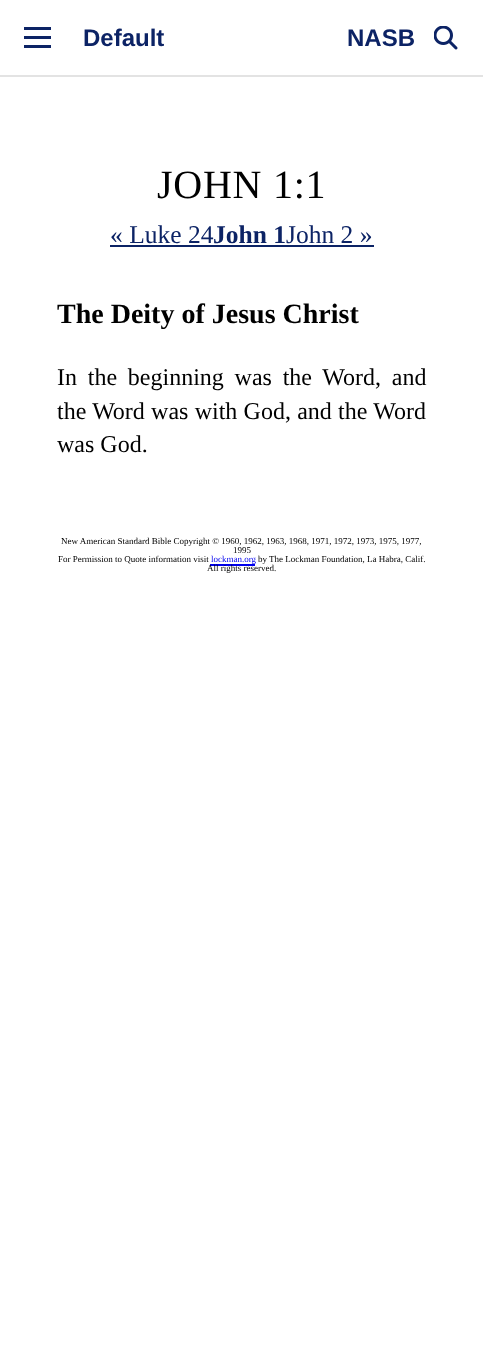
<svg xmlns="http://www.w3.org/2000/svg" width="483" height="1355">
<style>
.a{font:bold 24px Liberation Sans;fill:#0c2365}
.b{font:40px Liberation Serif;letter-spacing:0.75px;fill:#000}
.c{font:25.5px Liberation Serif;fill:#0c2365}
.d{font:bold 25.5px Liberation Serif;fill:#0c2365}
.e{font:bold 28px Liberation Serif;fill:#000}
.f{font:24px Liberation Serif;fill:#000}
.g{font:9px Liberation Serif;fill:#000}
.h{font:9px Liberation Serif;fill:#00e}
</style>
<rect width="100%" height="100%" fill="#fff"/>
<path fill="#0c2365" d="M24 27h27v3H24z"/>
<path fill="#0c2365" d="M24 36h27v3H24z"/>
<path fill="#0c2365" d="M24 45h27v3H24z"/>
<path fill="#e3e3e3" d="M0 75h483v2H0z"/>
<image href="1.png" x="434" y="26" width="24" height="24"/>
<path fill="#0c2365" d="M110 245h264v2H110z"/>
<path fill="#00e" d="M210 564h45v2H210z"/>
<text class="a" x="83" y="46">Default</text>
<text class="a" x="347" y="46">NASB</text>
<text class="b" x="157" y="198">JOHN 1:1</text>
<text class="c" x="110" y="243">« Luke 24</text>
<text class="d" x="213" y="243">John 1</text>
<text class="c" x="286" y="243">John 2 »</text>
<text class="e" x="57" y="323">The Deity of Jesus Christ</text>
<text class="f" x="57" y="385" word-spacing="4.75">In the beginning was the Word, and</text>
<text class="f" x="57" y="419" word-spacing="0.25">the Word was with God, and the Word</text>
<text class="f" x="57" y="452">was God.</text>
<text class="g" x="61" y="544">New American Standard Bible Copyright © 1960, 1962, 1963, 1968, 1971, 1972, 1973, 1975, 1977,</text>
<text class="g" x="233" y="553">1995</text>
<text class="g" x="58" y="562">For Permission to Quote information visit</text>
<text class="h" x="211" y="562">lockman.org</text>
<text class="g" x="258" y="562">by The Lockman Foundation, La Habra, Calif.</text>
<text class="g" x="207" y="571">All rights reserved.</text>
</svg>
